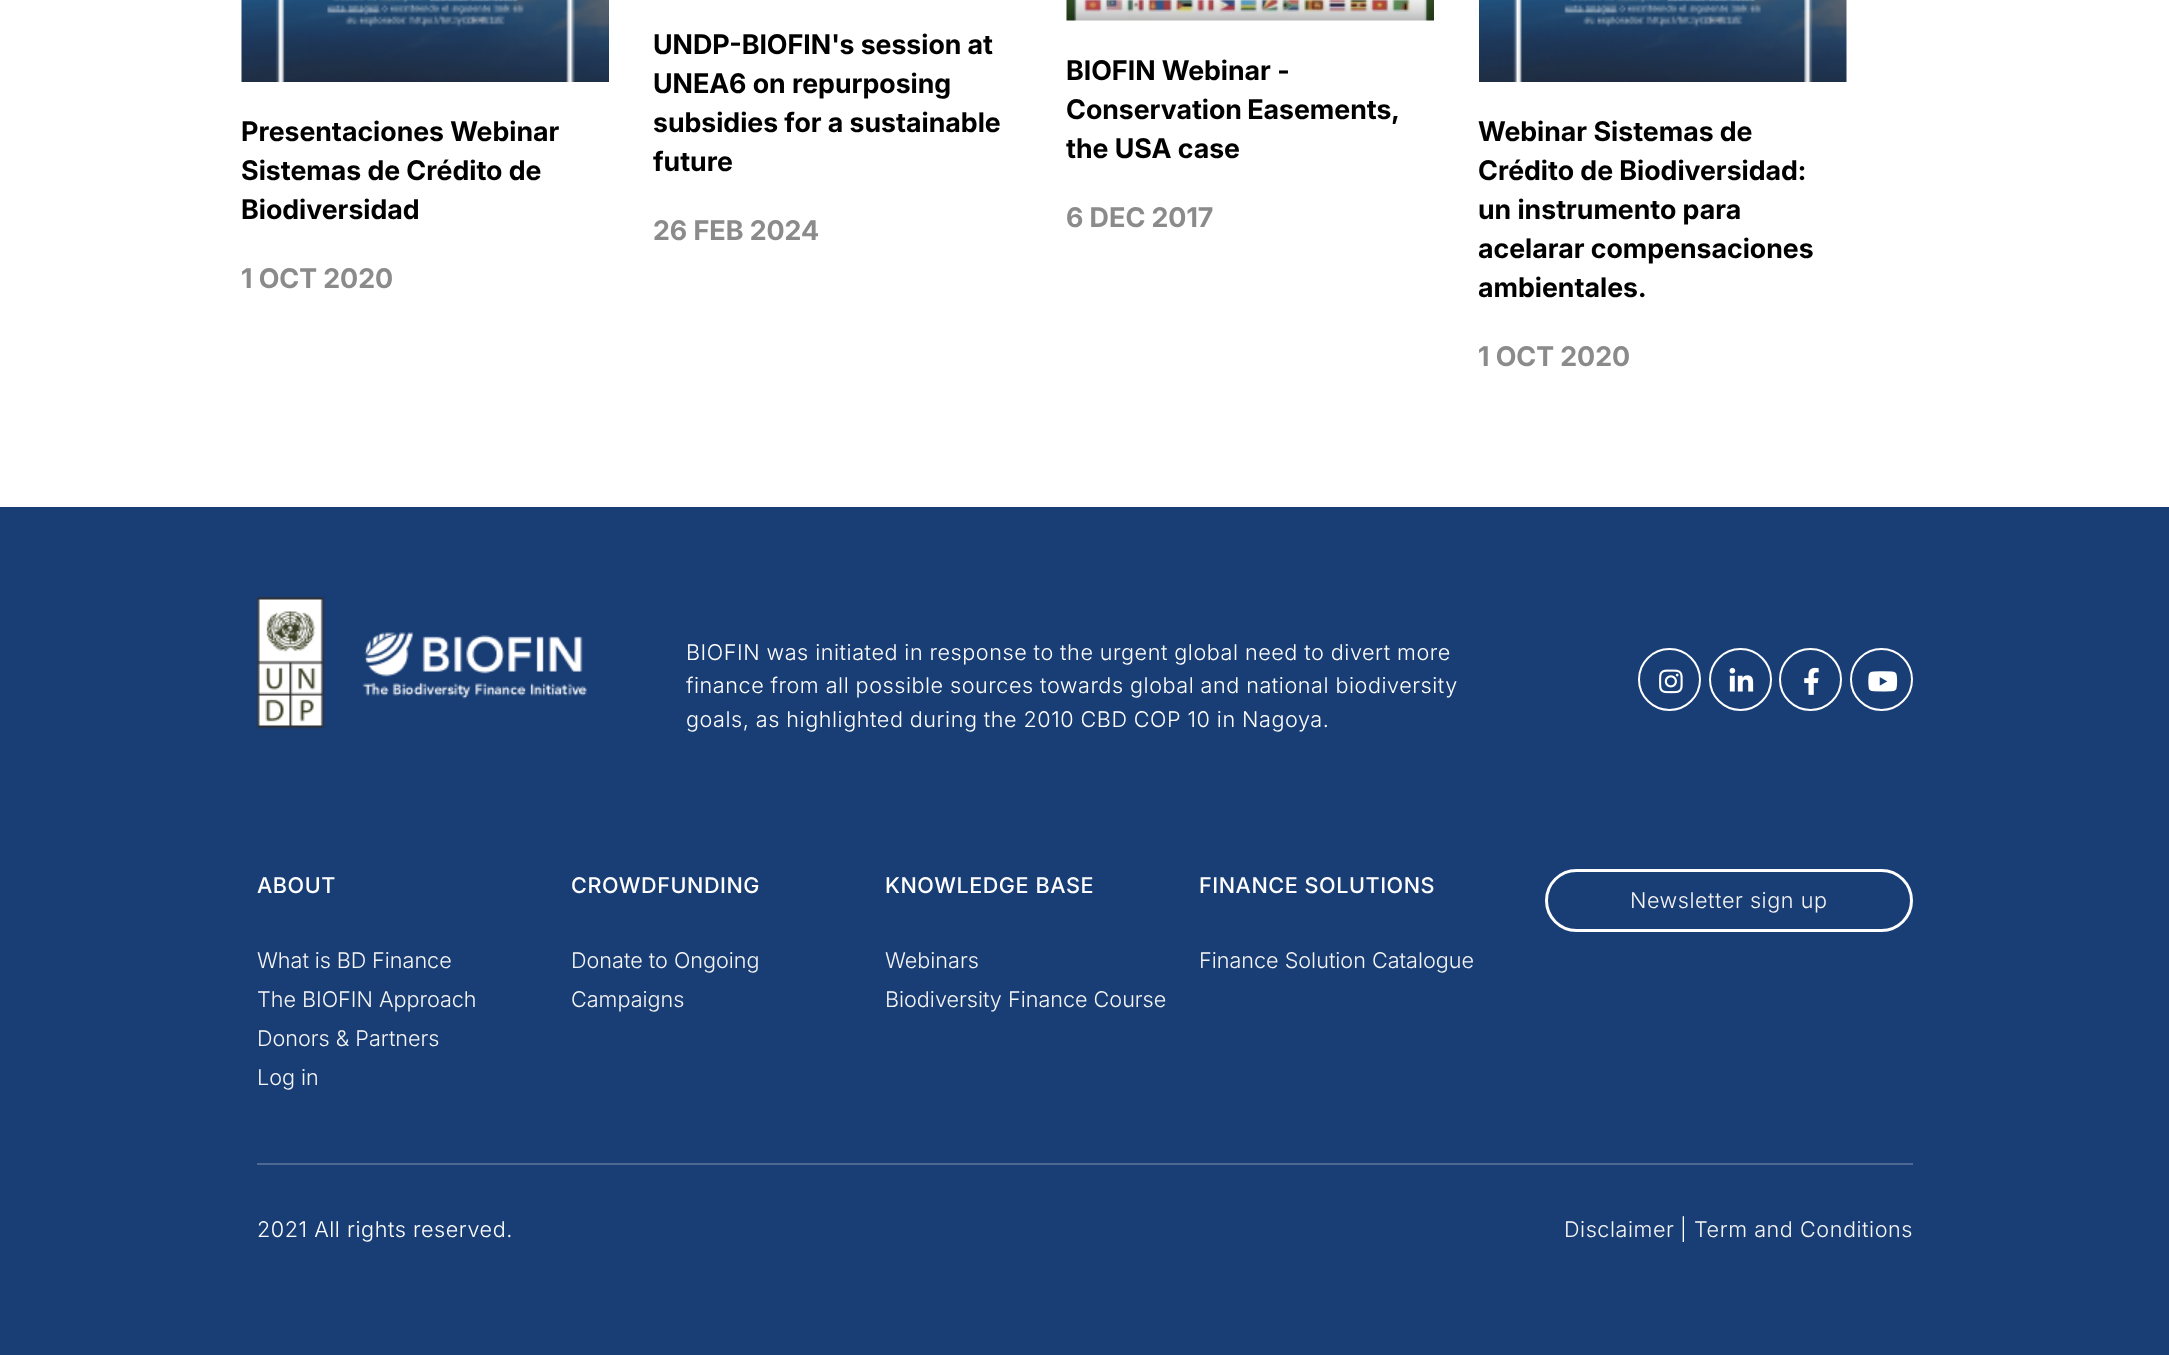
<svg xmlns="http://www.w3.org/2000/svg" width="2169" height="1355">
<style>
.a{font:bold 27px Inter;fill:#000}
.b{font:bold 27px Inter;fill:#8b8b8b}
.c{font:300 21.6px Inter;letter-spacing:0.55px;fill:#fff}
.d{font:500 21.6px Inter;letter-spacing:0.55px;fill:#fff}
.e{font:300 21.6px Inter;fill:#f5f5f5}
.f{font:300 21.6px Inter;letter-spacing:0.55px;fill:#f5f5f5}
</style>
<rect width="100%" height="100%" fill="#fff"/>
<image href="1.png" x="241" y="0" width="368" height="82"/>
<image href="2.png" x="1066" y="0" width="368" height="21"/>
<image href="3.png" x="1479" y="0" width="368" height="82"/>
<path fill="#193e75" d="M0 507h2169v848H0z"/>
<image href="4.png" x="256" y="596" width="331" height="133"/>
<circle fill="none" stroke="#fff" stroke-width="2" cx="1669.5" cy="679.5" r="30.5"/>
<image href="5.png" x="1659" y="669" width="24" height="25"/>
<circle fill="none" stroke="#fff" stroke-width="2" cx="1740.5" cy="679.5" r="30.5"/>
<image href="6.png" x="1729" y="667" width="25" height="25"/>
<circle fill="none" stroke="#fff" stroke-width="2" cx="1810.5" cy="679.5" r="30.5"/>
<image href="7.png" x="1804" y="667" width="15" height="28"/>
<circle fill="none" stroke="#fff" stroke-width="2" cx="1881.5" cy="679.5" r="30.5"/>
<image href="8.png" x="1868" y="671" width="30" height="21"/>
<rect fill="none" stroke="#fff" stroke-width="3" x="1546.5" y="870.5" width="365" height="60" rx="30"/>
<path fill="#4d6892" d="M257 1163h1656v2H257z"/>
<text class="a" x="241" y="141">Presentaciones Webinar</text>
<text class="a" x="241" y="180">Sistemas de Crédito de</text>
<text class="a" x="241" y="219">Biodiversidad</text>
<text class="b" x="241" y="288">1 OCT 2020</text>
<text class="a" x="653" y="54">UNDP-BIOFIN's session at</text>
<text class="a" x="653" y="93">UNEA6 on repurposing</text>
<text class="a" x="653" y="132">subsidies for a sustainable</text>
<text class="a" x="653" y="171">future</text>
<text class="b" x="653" y="240">26 FEB 2024</text>
<text class="a" x="1066" y="80">BIOFIN Webinar -</text>
<text class="a" x="1066" y="119" word-spacing="-1">Conservation Easements,</text>
<text class="a" x="1066" y="158">the USA case</text>
<text class="b" x="1066" y="227">6 DEC 2017</text>
<text class="a" x="1478" y="141">Webinar Sistemas de</text>
<text class="a" x="1478" y="180">Crédito de Biodiversidad:</text>
<text class="a" x="1478" y="219">un instrumento para</text>
<text class="a" x="1478" y="258">acelarar compensaciones</text>
<text class="a" x="1478" y="297">ambientales.</text>
<text class="b" x="1478" y="366">1 OCT 2020</text>
<text class="c" x="686" y="660" word-spacing="-0.25">BIOFIN was initiated in response to the urgent global need to divert more</text>
<text class="c" x="686" y="693" word-spacing="-0.25">finance from all possible sources towards global and national biodiversity</text>
<text class="c" x="686" y="727" word-spacing="-0.25">goals, as highlighted during the 2010 CBD COP 10 in Nagoya.</text>
<text class="d" x="257" y="893">ABOUT</text>
<text class="e" x="257" y="968" word-spacing="-0.25">What is BD Finance</text>
<text class="e" x="257" y="1007">The BIOFIN Approach</text>
<text class="e" x="257" y="1046">Donors &amp; Partners</text>
<text class="e" x="257" y="1085">Log in</text>
<text class="d" x="571" y="893">CROWDFUNDING</text>
<text class="e" x="571" y="968">Donate to Ongoing</text>
<text class="e" x="571" y="1007">Campaigns</text>
<text class="d" x="885" y="893">KNOWLEDGE BASE</text>
<text class="e" x="885" y="968">Webinars</text>
<text class="e" x="885" y="1007">Biodiversity Finance Course</text>
<text class="d" x="1199" y="893">FINANCE SOLUTIONS</text>
<text class="e" x="1199" y="968">Finance Solution Catalogue</text>
<text class="f" x="1630" y="908">Newsletter sign up</text>
<text class="c" x="257" y="1237">2021 All rights reserved.</text>
<text class="f" x="1564" y="1237">Disclaimer</text>
<text class="c" x="1680" y="1237">|</text>
<text class="f" x="1694" y="1237">Term and Conditions</text>
</svg>
